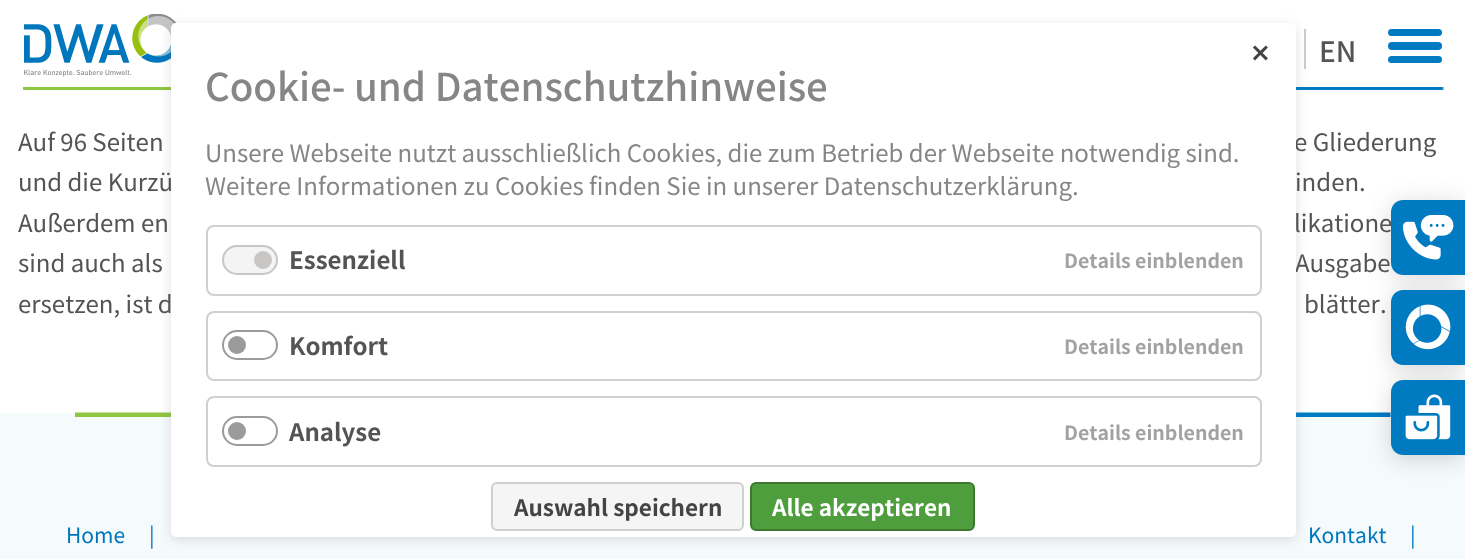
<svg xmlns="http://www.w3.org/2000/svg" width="1465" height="559">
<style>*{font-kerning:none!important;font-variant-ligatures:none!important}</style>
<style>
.a{font:500 28px Noto Sans JP;fill:#545454}
.b{font:24px Noto Sans JP;fill:#545454}
.c{font:21px Noto Sans JP;fill:#07b}
.d{font:21px Noto Sans JP;fill:#007bc2}
.e{font:bold 24px DejaVu Sans;fill:#444}
.f{font:500 38.4px Noto Sans JP;fill:#868686}
.g{font:24px Noto Sans JP;fill:#868686}
.h{font:bold 24px Noto Sans JP;fill:#545454}
.i{font:bold 19.5px Noto Sans JP;fill:#a2a2a2}
.j{font:bold 22.5px Noto Sans JP;fill:#444}
.k{font:bold 22.5px Noto Sans JP;fill:#fff}
</style>
<rect width="100%" height="100%" fill="#fff"/>
<image href="1.png" x="24" y="14" width="153" height="63"/>
<path fill="#cbcbcb" d="M1304 29h2v40H1304z"/>
<rect fill="#007bc2" x="1388" y="42" width="54" height="8" rx="4"/>
<rect fill="#007bc2" x="1388" y="29" width="54" height="7" rx="3.5"/>
<rect fill="#007bc2" x="1388" y="56" width="54" height="7" rx="3.5"/>
<image href="2.png" x="23" y="87" width="1421" height="3"/>
<rect fill="#00000026" filter="blur(12px)" x="1391" y="203" width="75" height="75" rx="12"/>
<path fill="#f5fafd" d="M0 413h1465v146H0z"/>
<image href="6.png" x="75" y="412" width="1316" height="5"/>
<rect fill="#63636333" filter="blur(6px)" x="171" y="26" width="1125" height="514" rx="5"/>
<text class="a" x="1319" y="62">EN</text>
<text class="b" x="18" y="151">Auf 96 Seiten</text>
<text class="b" x="1294" y="151">e Gliederung</text>
<text class="b" x="18" y="191">und die Kurzü</text>
<text class="b" x="1295" y="191">inden.</text>
<text class="b" x="18" y="232">Außerdem en</text>
<text class="b" x="1294" y="232">likatione</text>
<text class="b" x="18" y="272">sind auch als</text>
<text class="b" x="1295" y="272">Ausgabe</text>
<text class="b" x="18" y="313">ersetzen, ist d</text>
<text class="b" x="1304" y="313">blätter.</text>
<path fill="#007bc2" d="M1403 200h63v75h-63c-6.5 0-12-5.5-12-12v-51c0-6.5 5.5-12 12-12z"/>
<image href="3.png" x="1402" y="215" width="52" height="45"/>
<rect fill="#00000029" filter="blur(11px)" x="1391" y="294" width="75" height="75" rx="12"/>
<path fill="#007bc2" d="M1403 290h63v75h-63c-6.5 0-12-5.5-12-12v-51c0-6.5 5.5-12 12-12z"/>
<image href="4.png" x="1405" y="304" width="46" height="46"/>
<rect fill="#00000029" filter="blur(11px)" x="1391" y="384" width="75" height="75" rx="12"/>
<path fill="#007bc2" d="M1403 380h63v75h-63c-6.5 0-12-5.5-12-12v-51c0-6.5 5.5-12 12-12z"/>
<image href="5.png" x="1405" y="394" width="46" height="46"/>
<text class="c" x="66" y="543">Home</text>
<text class="d" x="149" y="543">|</text>
<text class="c" x="1308" y="543">Kontakt</text>
<text class="d" x="1410" y="543">|</text>
<rect fill="#fff" x="171" y="23" width="1125" height="514" rx="5"/>
<text class="e" x="1250" y="62">✕</text>
<text class="f" x="205" y="101">Cookie- und Datenschutzhinweise</text>
<text class="g" x="205" y="162">Unsere Webseite nutzt ausschließlich Cookies, die zum Betrieb der Webseite notwendig sind.</text>
<text class="g" x="205" y="195">Weitere Informationen zu Cookies finden Sie in unserer Datenschutzerklärung.</text>
<rect fill="none" stroke="#d0d0d0" stroke-width="2" x="207" y="226" width="1054" height="69" rx="7"/>
<rect fill="#f4f4f4" stroke="#c8c7c5" stroke-width="2" x="223" y="246" width="54" height="28" rx="14"/>
<text class="h" x="289" y="269">Essenziell</text>
<circle fill="#c8c7c5" cx="263" cy="260" r="9"/>
<text class="i" x="1064" y="268">Details einblenden</text>
<rect fill="none" stroke="#d0d0d0" stroke-width="2" x="207" y="312" width="1054" height="68" rx="7"/>
<rect fill="none" stroke="#9c9b99" stroke-width="2" x="223" y="331" width="54" height="28" rx="14"/>
<text class="h" x="289" y="355">Komfort</text>
<circle fill="#9c9b99" cx="237" cy="345" r="9"/>
<text class="i" x="1064" y="354">Details einblenden</text>
<rect fill="none" stroke="#d0d0d0" stroke-width="2" x="207" y="397" width="1054" height="69" rx="7"/>
<rect fill="none" stroke="#9c9b99" stroke-width="2" x="223" y="417" width="54" height="28" rx="14"/>
<text class="h" x="289" y="441">Analyse</text>
<circle fill="#9c9b99" cx="237" cy="431" r="9"/>
<text class="i" x="1064" y="440">Details einblenden</text>
<rect fill="#f5f5f5" stroke="#cfcfcf" stroke-width="2" x="492" y="483" width="251" height="47" rx="5"/>
<text class="j" x="514" y="516">Auswahl speichern</text>
<rect fill="#4e9e3e" stroke="#3e7830" stroke-width="2" x="751" y="483" width="223" height="47" rx="5"/>
<text class="k" x="772" y="516">Alle akzeptieren</text>
</svg>
